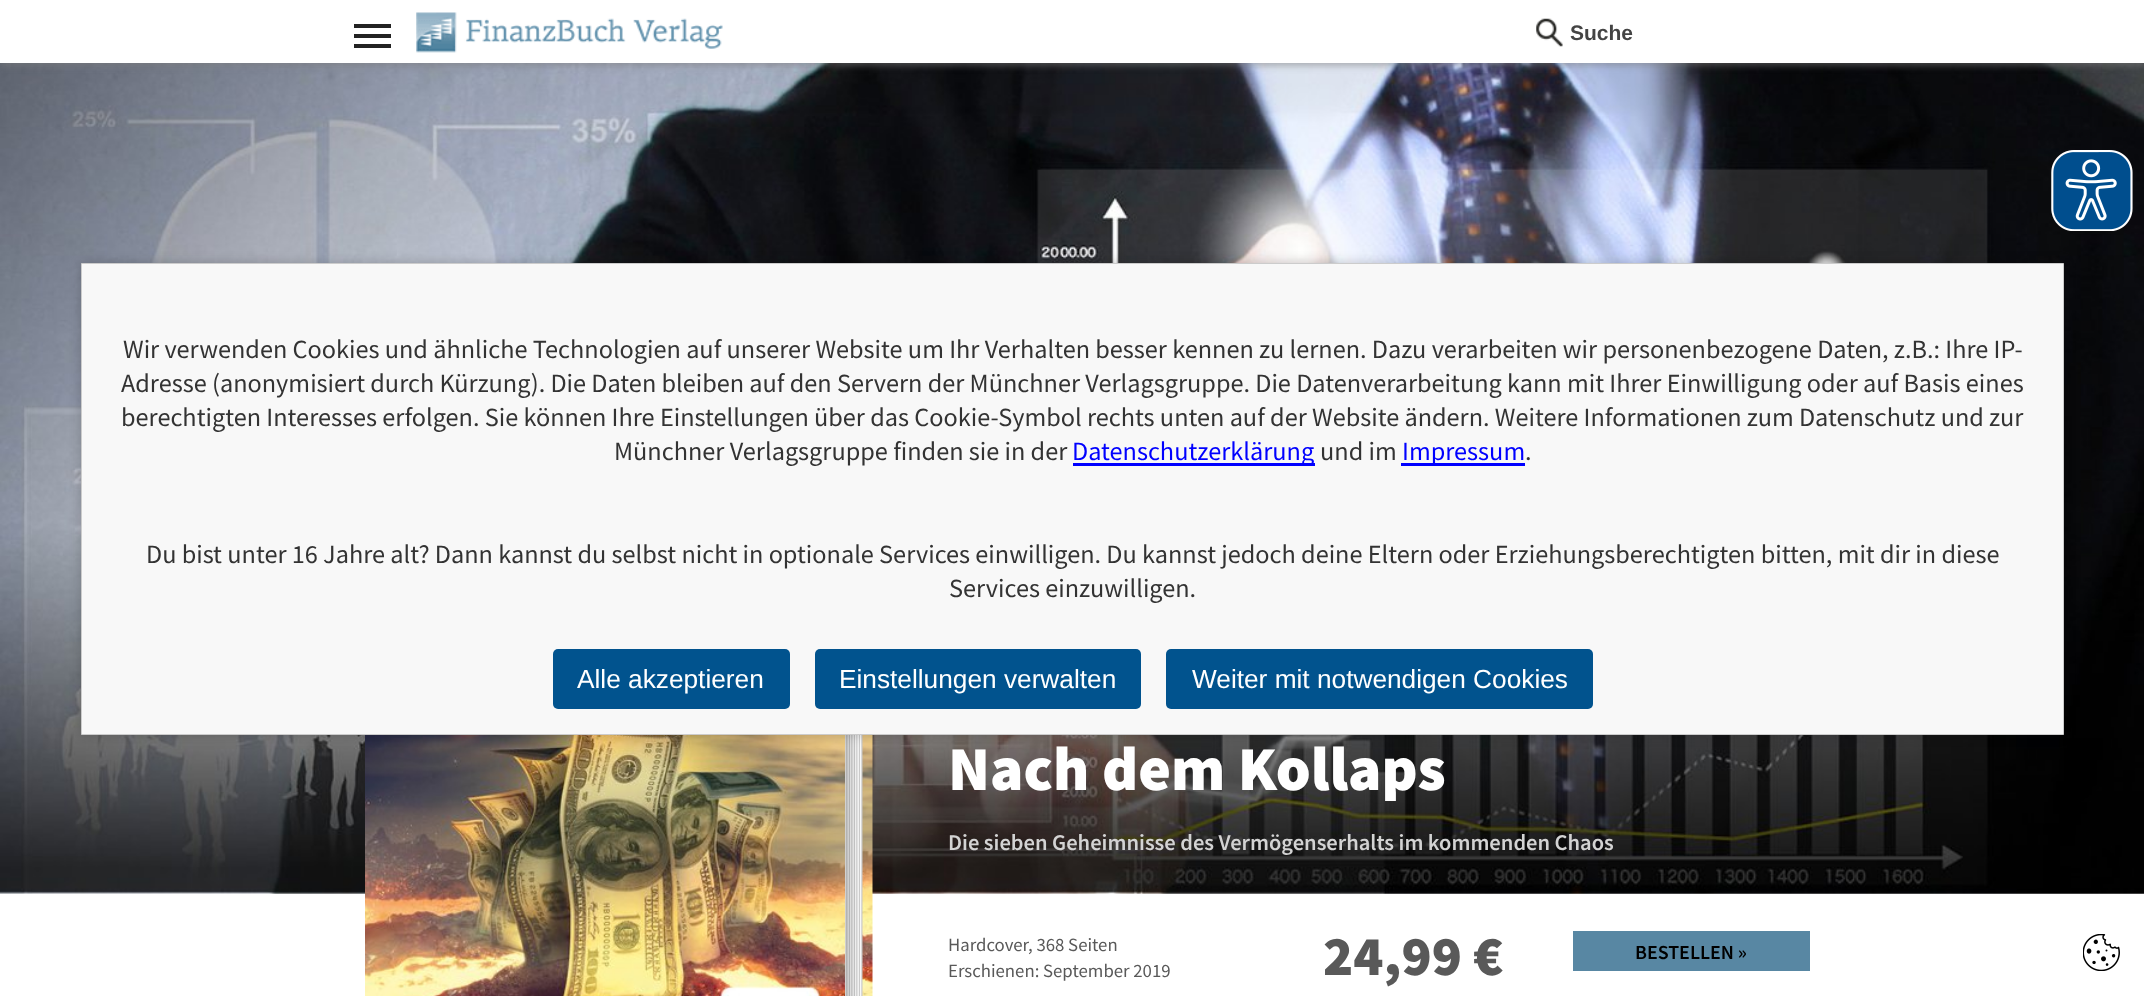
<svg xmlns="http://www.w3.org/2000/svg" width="2144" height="996">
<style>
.a{font:bold 21px Liberation Sans;fill:#444}
.b{font:900 62.5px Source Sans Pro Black;fill:#fff}
.c{font:600 22.5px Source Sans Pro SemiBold;fill:#d3d3d3}
.d{font:18.75px Source Sans Pro;fill:#595959}
.e{font:900 56px Source Sans Pro Black;fill:#595959}
.f{font:600 20px Source Sans Pro SemiBold;fill:#000}
.g{font:26.25px Source Sans Pro;fill:#333}
.h{font:26.25px Source Sans Pro;fill:#00f}
.i{font:26.25px Liberation Sans;fill:#fff}
</style>
<rect width="100%" height="100%" fill="#fff"/>
<image href="3.png" x="0" y="63" width="2144" height="831"/>
<path fill="#7d7d7d80" filter="blur(3px)" d="M0 4h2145v62H0z"/>
<path fill="#fff" d="M0 0h2144v63H0z"/>
<path fill="#222" d="M354 24h37v4H354z"/>
<path fill="#222" d="M354 34h37v4H354z"/>
<path fill="#222" d="M354 44h37v4H354z"/>
<image href="1.png" x="416" y="12" width="307" height="41"/>
<image href="2.png" x="1536" y="18" width="27" height="29"/>
<image href="4.png" x="862" y="735" width="11" height="261"/>
<image href="5.png" x="365" y="735" width="480" height="261"/>
<image href="6.png" x="845" y="735" width="18" height="261"/>
<path fill="#5887a3" d="M1573 931h237v40H1573z"/>
<image href="7.png" x="2051" y="150" width="82" height="81"/>
<path fill="#00000033" filter="blur(6px)" d="M81 263h1983v472H81z"/>
<path fill="#f8f8f8" stroke="#ccc" d="M81.5 263.5h1982v471H81.5z"/>
<path fill="#00f" d="M1073 463h242v3H1073z"/>
<path fill="#00f" d="M1401 463h124v3H1401z"/>
<rect fill="#01538e" x="553" y="649" width="237" height="60" rx="5"/>
<rect fill="#01538e" x="815" y="649" width="326" height="60" rx="5"/>
<rect fill="#01538e" x="1166" y="649" width="427" height="60" rx="5"/>
<image href="8.png" x="2083" y="934" width="37" height="37"/>
<text class="a" x="1570" y="40">Suche</text>
<text class="b" x="948" y="790">Nach dem Kollaps</text>
<text class="c" x="948" y="850">Die sieben Geheimnisse des Vermögenserhalts im kommenden Chaos</text>
<text class="d" x="948" y="951">Hardcover</text>
<text class="d" x="1028" y="951">, 368 Seiten</text>
<text class="d" x="948" y="977">Erschienen: September 2019</text>
<text class="e" x="1323" y="975">24,99 €</text>
<text class="f" x="1635" y="959">BESTELLEN »</text>
<text class="g" x="123" y="358">Wir verwenden Cookies und ähnliche Technologien auf unserer Website um Ihr Verhalten besser kennen zu lernen. Dazu verarbeiten wir personenbezogene Daten, z.B.: Ihre IP-</text>
<text class="g" x="121" y="392">Adresse (anonymisiert durch Kürzung). Die Daten bleiben auf den Servern der Münchner Verlagsgruppe. Die Datenverarbeitung kann mit Ihrer Einwilligung oder auf Basis eines</text>
<text class="g" x="121" y="426">berechtigten Interesses erfolgen. Sie können Ihre Einstellungen über das Cookie-Symbol rechts unten auf der Website ändern. Weitere Informationen zum Datenschutz und zur</text>
<text class="g" x="614" y="460">Münchner Verlagsgruppe finden sie in der</text>
<text class="h" x="1072" y="460">Datenschutzerklärung</text>
<text class="g" x="1320" y="460">und im</text>
<text class="h" x="1402" y="460">Impressum</text>
<text class="g" x="1525" y="460">.</text>
<text class="g" x="146" y="563">Du bist unter 16 Jahre alt? Dann kannst du selbst nicht in optionale Services einwilligen. Du kannst jedoch deine Eltern oder Erziehungsberechtigten bitten, mit dir in diese</text>
<text class="g" x="949" y="597">Services einzuwilligen.</text>
<text class="i" x="577" y="688">Alle akzeptieren</text>
<text class="i" x="839" y="688">Einstellungen verwalten</text>
<text class="i" x="1192" y="688">Weiter mit notwendigen Cookies</text>
</svg>
